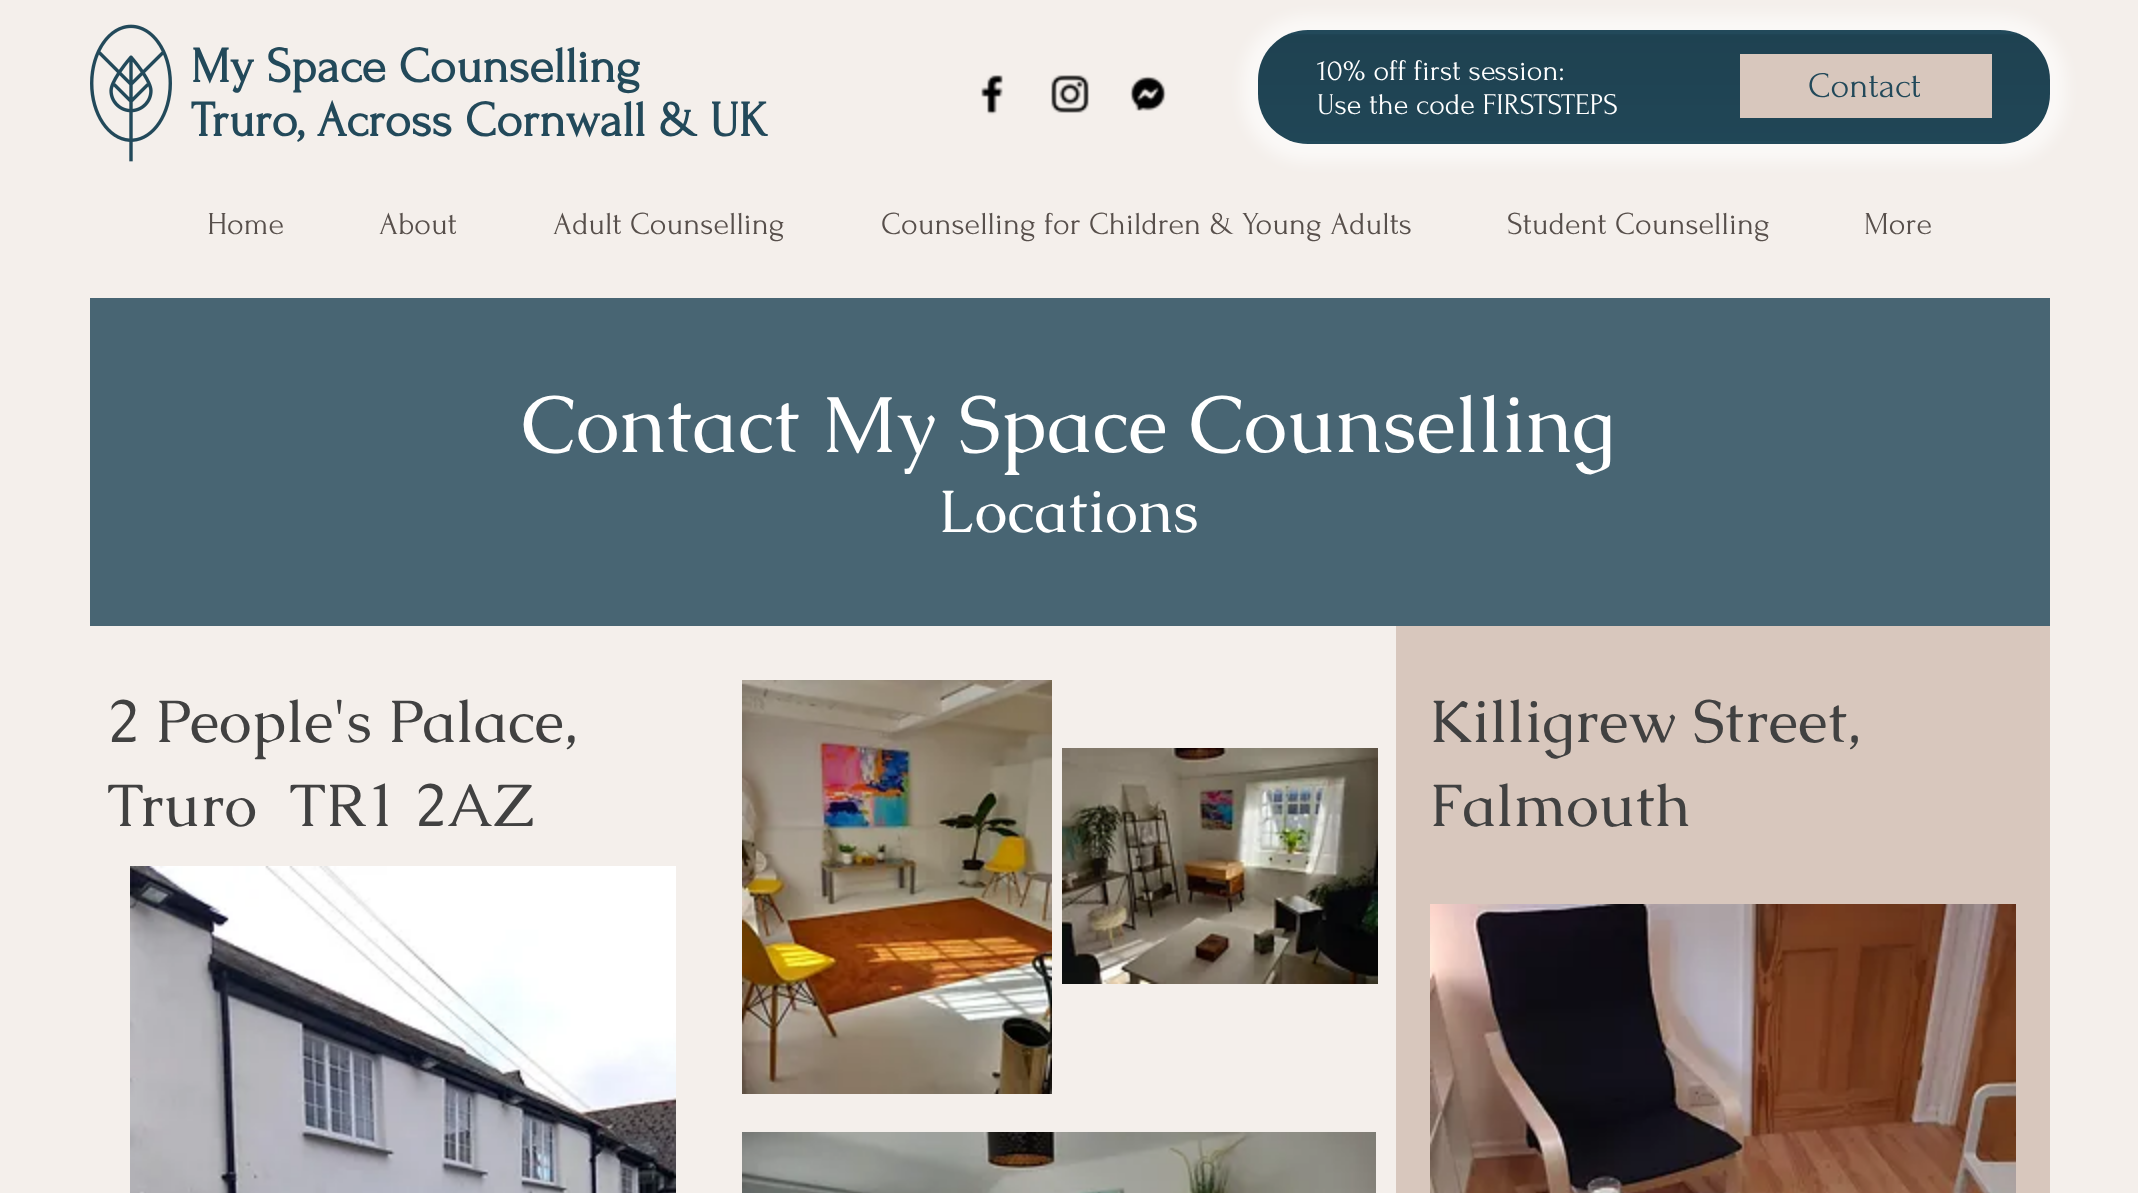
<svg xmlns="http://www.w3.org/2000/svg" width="2138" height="1193">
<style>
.a{font:bold 50px Forum;fill:#22495a}
.b{font:30px Forum;fill:#fff}
.c{font:36px Forum;fill:#22495a}
.d{font:32px Forum;fill:#574f4b}
.e{font:80px Caudex;fill:#fff}
.f{font:60px Caudex;fill:#fff}
.g{font:60px Caudex;fill:#414141}
</style>
<rect width="100%" height="100%" fill="#f4efeb"/>
<image href="1.png" x="90" y="24" width="82" height="138"/>
<image href="2.png" x="981" y="75" width="22" height="40"/>
<image href="3.png" x="1051" y="75" width="38" height="38"/>
<image href="4.png" x="1130" y="76" width="36" height="35"/>
<rect fill="#ffffff99" filter="blur(8px)" x="1242" y="16" width="824" height="146" rx="66"/>
<rect fill="#22495a" x="1258" y="30" width="792" height="114" rx="50"/>
<image href="5.png" x="1258" y="34" width="792" height="107"/>
<path fill="#d8c7bd" d="M1740 54h252v64H1740z"/>
<path fill="#486573" d="M90 298h1960v328H90z"/>
<image href="6.png" x="130" y="866" width="546" height="327"/>
<image href="7.png" x="742" y="680" width="310" height="414"/>
<image href="8.png" x="1062" y="748" width="316" height="236"/>
<image href="9.png" x="742" y="1132" width="634" height="61"/>
<path fill="#d8c7bd" d="M1396 626h654v567H1396z"/>
<image href="10.png" x="1430" y="904" width="586" height="289"/>
<text class="a" x="191" y="82">My Space Counselling</text>
<text class="a" x="191" y="136">Truro, Across Cornwall &amp; UK</text>
<text class="b" x="1317" y="80">10% off first session:</text>
<text class="b" x="1317" y="114">Use the code FIRSTSTEPS</text>
<text class="c" x="1808" y="97">Contact</text>
<text class="d" x="207" y="234">Home</text>
<text class="d" x="379" y="234">About</text>
<text class="d" x="553" y="234">Adult Counselling</text>
<text class="d" x="881" y="234">Counselling for Children &amp; Young Adults</text>
<text class="d" x="1507" y="234">Student Counselling</text>
<text class="d" x="1864" y="234">More</text>
<text class="e" x="521" y="452">Contact My Space Counselling</text>
<text class="f" x="938" y="532">Locations</text>
<text class="g" x="107" y="742">2 People's Palace,</text>
<text class="g" xml:space="preserve" x="107" y="826">Truro  TR1 2AZ</text>
<text class="g" x="1429" y="742">Killigrew Street,</text>
<text class="g" x="1429" y="826">Falmouth</text>
</svg>
